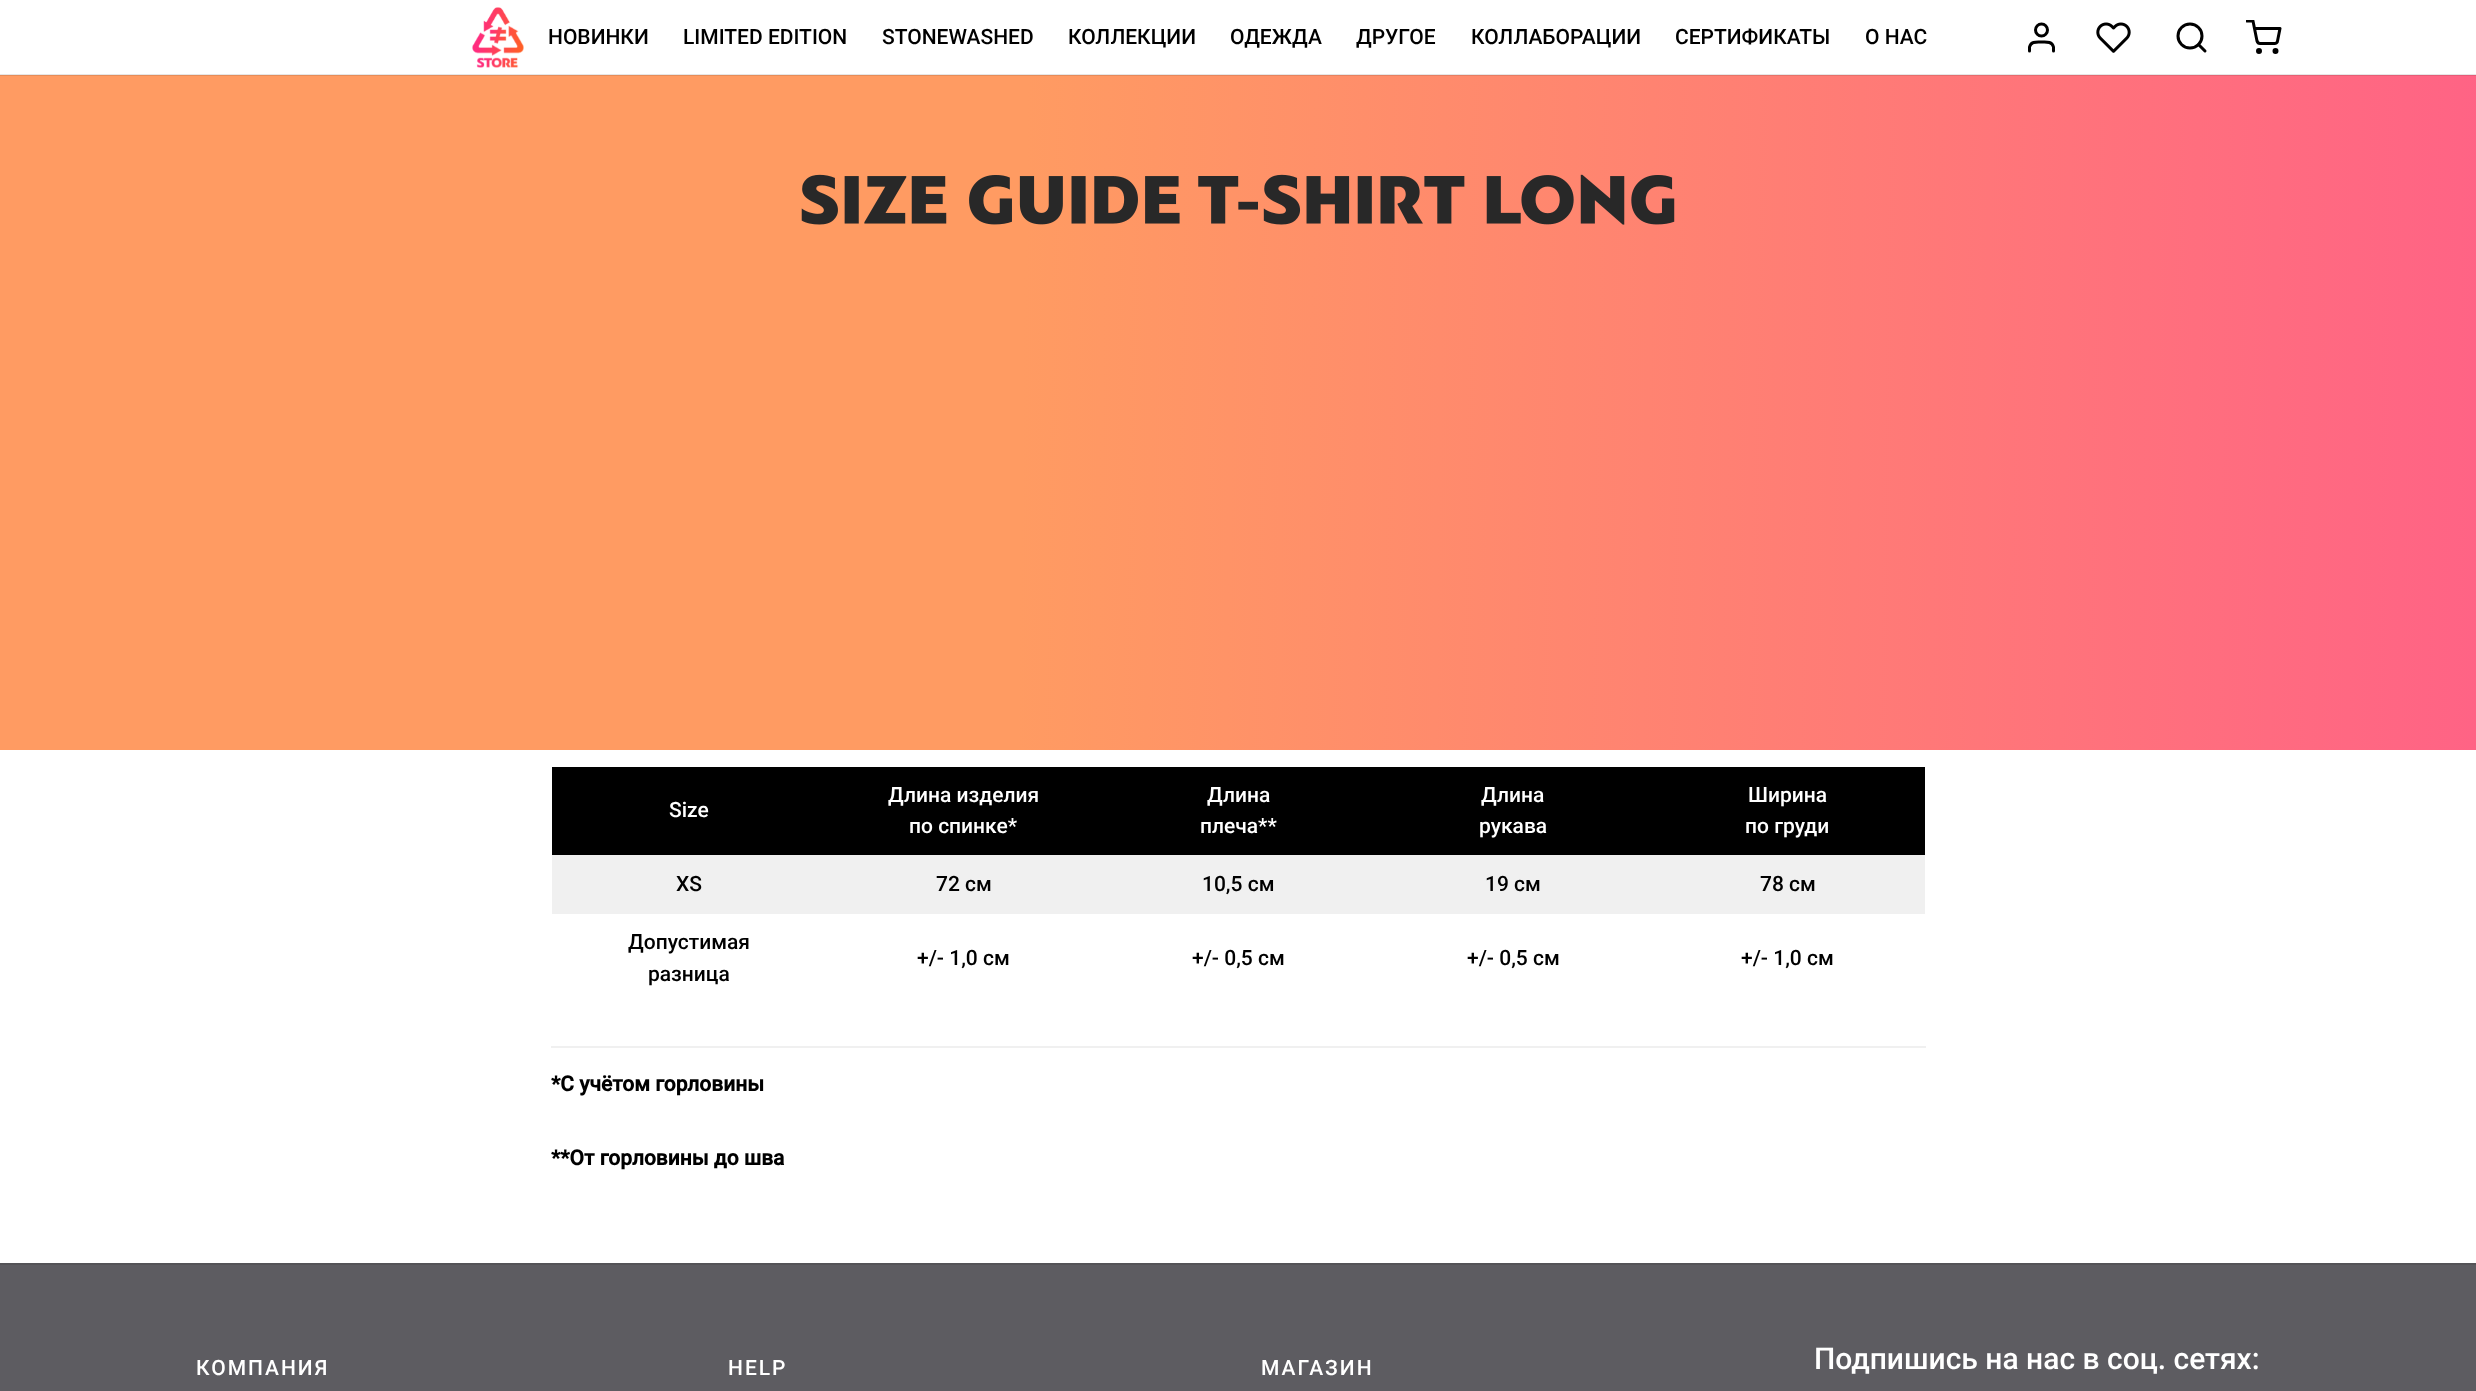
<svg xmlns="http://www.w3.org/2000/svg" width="2476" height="1391">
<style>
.a{font:500 21px Roboto;fill:#000}
.b{font:500 21px Roboto;fill:#fff}
.c{font:bold 21px Roboto;fill:#000}
.d{font:500 21px Roboto;letter-spacing:2px;fill:#fff}
.e{font:500 30px Roboto;fill:#fff}
</style>
<defs>
<clipPath id="clip1"><path d="M2246 20h36v36H2246z"/></clipPath>
<linearGradient id="g1" gradientUnits="userSpaceOnUse" x1="-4.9" y1="393" x2="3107" y2="442"><stop offset="0.33" stop-color="#ff9b62"/><stop offset="1" stop-color="#ff4b94"/></linearGradient>
<linearGradient id="g2" gradientUnits="userSpaceOnUse" x1="-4.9" y1="393" x2="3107" y2="442"><stop offset="0.33" stop-color="#e68c58"/><stop offset="1" stop-color="#e64485"/></linearGradient>
</defs>
<rect width="100%" height="100%" fill="#fff"/>
<path fill="#e6e6e6" d="M0 74h2476v1H0z"/>
<image href="1.png" x="472" y="7" width="52" height="61"/>
<path fill="none" stroke="#000" stroke-width="3" stroke-linecap="round" stroke-linejoin="round" d="M2053.5 51v-4c-1.5-6-7.5-5-12-5c-4.5 0-10.5-1-12 5v4"/>
<circle fill="none" stroke="#000" stroke-width="3" cx="2041.5" cy="30" r="6"/>
<image href="2.png" x="2096" y="22" width="35" height="31"/>
<circle fill="none" stroke="#000" stroke-width="3" cx="2190" cy="36" r="12"/>
<path fill="none" stroke="#000" stroke-width="3" stroke-linecap="round" stroke-linejoin="round" d="M2205 51l-6.5-6.5"/>
<circle fill="none" stroke="#000" stroke-width="3" cx="2259" cy="51" r="1.5"/>
<circle fill="none" stroke="#000" stroke-width="3" cx="2275.5" cy="51" r="1.5"/>
<g clip-path="url(#clip1)">
<path fill="none" stroke="#000" stroke-width="3" stroke-linecap="round" stroke-linejoin="round" d="M2247 21h6l4 20c.5 1.5 1.5 2.5 3 2.5h14.5c1.5 0 3-1 3-2.5l2.5-12.5h-25.5"/>
</g>
<path fill="url(#g1)" d="M0 76h2476v674H0z"/>
<path fill="url(#g2)" d="M0 75h2476v1H0z"/>
<image href="3.png" x="801" y="174" width="874" height="51"/>
<path fill="#f0f0f0" d="M551 1046h1375v2H551z"/>
<path fill="#000" d="M552 767h1373v88H552z"/>
<path fill="#f0f0f0" d="M552 855h1373v59H552z"/>
<path fill="#5d5c61" d="M0 1265h2476v126H0z"/>
<path fill="#545357" d="M0 1263h2476v2H0z"/>
<text class="a" x="548" y="44">НОВИНКИ</text>
<text class="a" x="683" y="44">LIMITED EDITION</text>
<text class="a" x="882" y="44">STONEWASHED</text>
<text class="a" x="1068" y="44">КОЛЛЕКЦИИ</text>
<text class="a" x="1230" y="44">ОДЕЖДА</text>
<text class="a" x="1356" y="44">ДРУГОЕ</text>
<text class="a" x="1471" y="44">КОЛЛАБОРАЦИИ</text>
<text class="a" x="1675" y="44">СЕРТИФИКАТЫ</text>
<text class="a" x="1865" y="44">О НАС</text>
<text class="b" x="669" y="817">Size</text>
<text class="b" x="888" y="802">Длина изделия</text>
<text class="b" x="909" y="833">по спинке*</text>
<text class="b" x="1207" y="802">Длина</text>
<text class="b" x="1200" y="833">плеча**</text>
<text class="b" x="1481" y="802">Длина</text>
<text class="b" x="1479" y="833">рукава</text>
<text class="b" x="1748" y="802">Ширина</text>
<text class="b" x="1745" y="833">по груди</text>
<text class="a" x="676" y="891">XS</text>
<text class="a" x="936" y="891">72 см</text>
<text class="a" x="1202" y="891">10,5 см</text>
<text class="a" x="1485" y="891">19 см</text>
<text class="a" x="1760" y="891">78 см</text>
<text class="a" x="628" y="949">Допустимая</text>
<text class="a" x="648" y="981">разница</text>
<text class="a" x="917" y="965">+/- 1,0 см</text>
<text class="a" x="1192" y="965">+/- 0,5 см</text>
<text class="a" x="1467" y="965">+/- 0,5 см</text>
<text class="a" x="1741" y="965">+/- 1,0 см</text>
<text class="c" x="551" y="1091">*С учётом горловины</text>
<text class="c" x="551" y="1165">**От горловины до шва</text>
<text class="d" x="196" y="1375">КОМПАНИЯ</text>
<text class="d" x="728" y="1375">HELP</text>
<text class="d" x="1261" y="1375">МАГАЗИН</text>
<text class="e" x="1814" y="1369">Подпишись на нас в соц. сетях:</text>
</svg>
